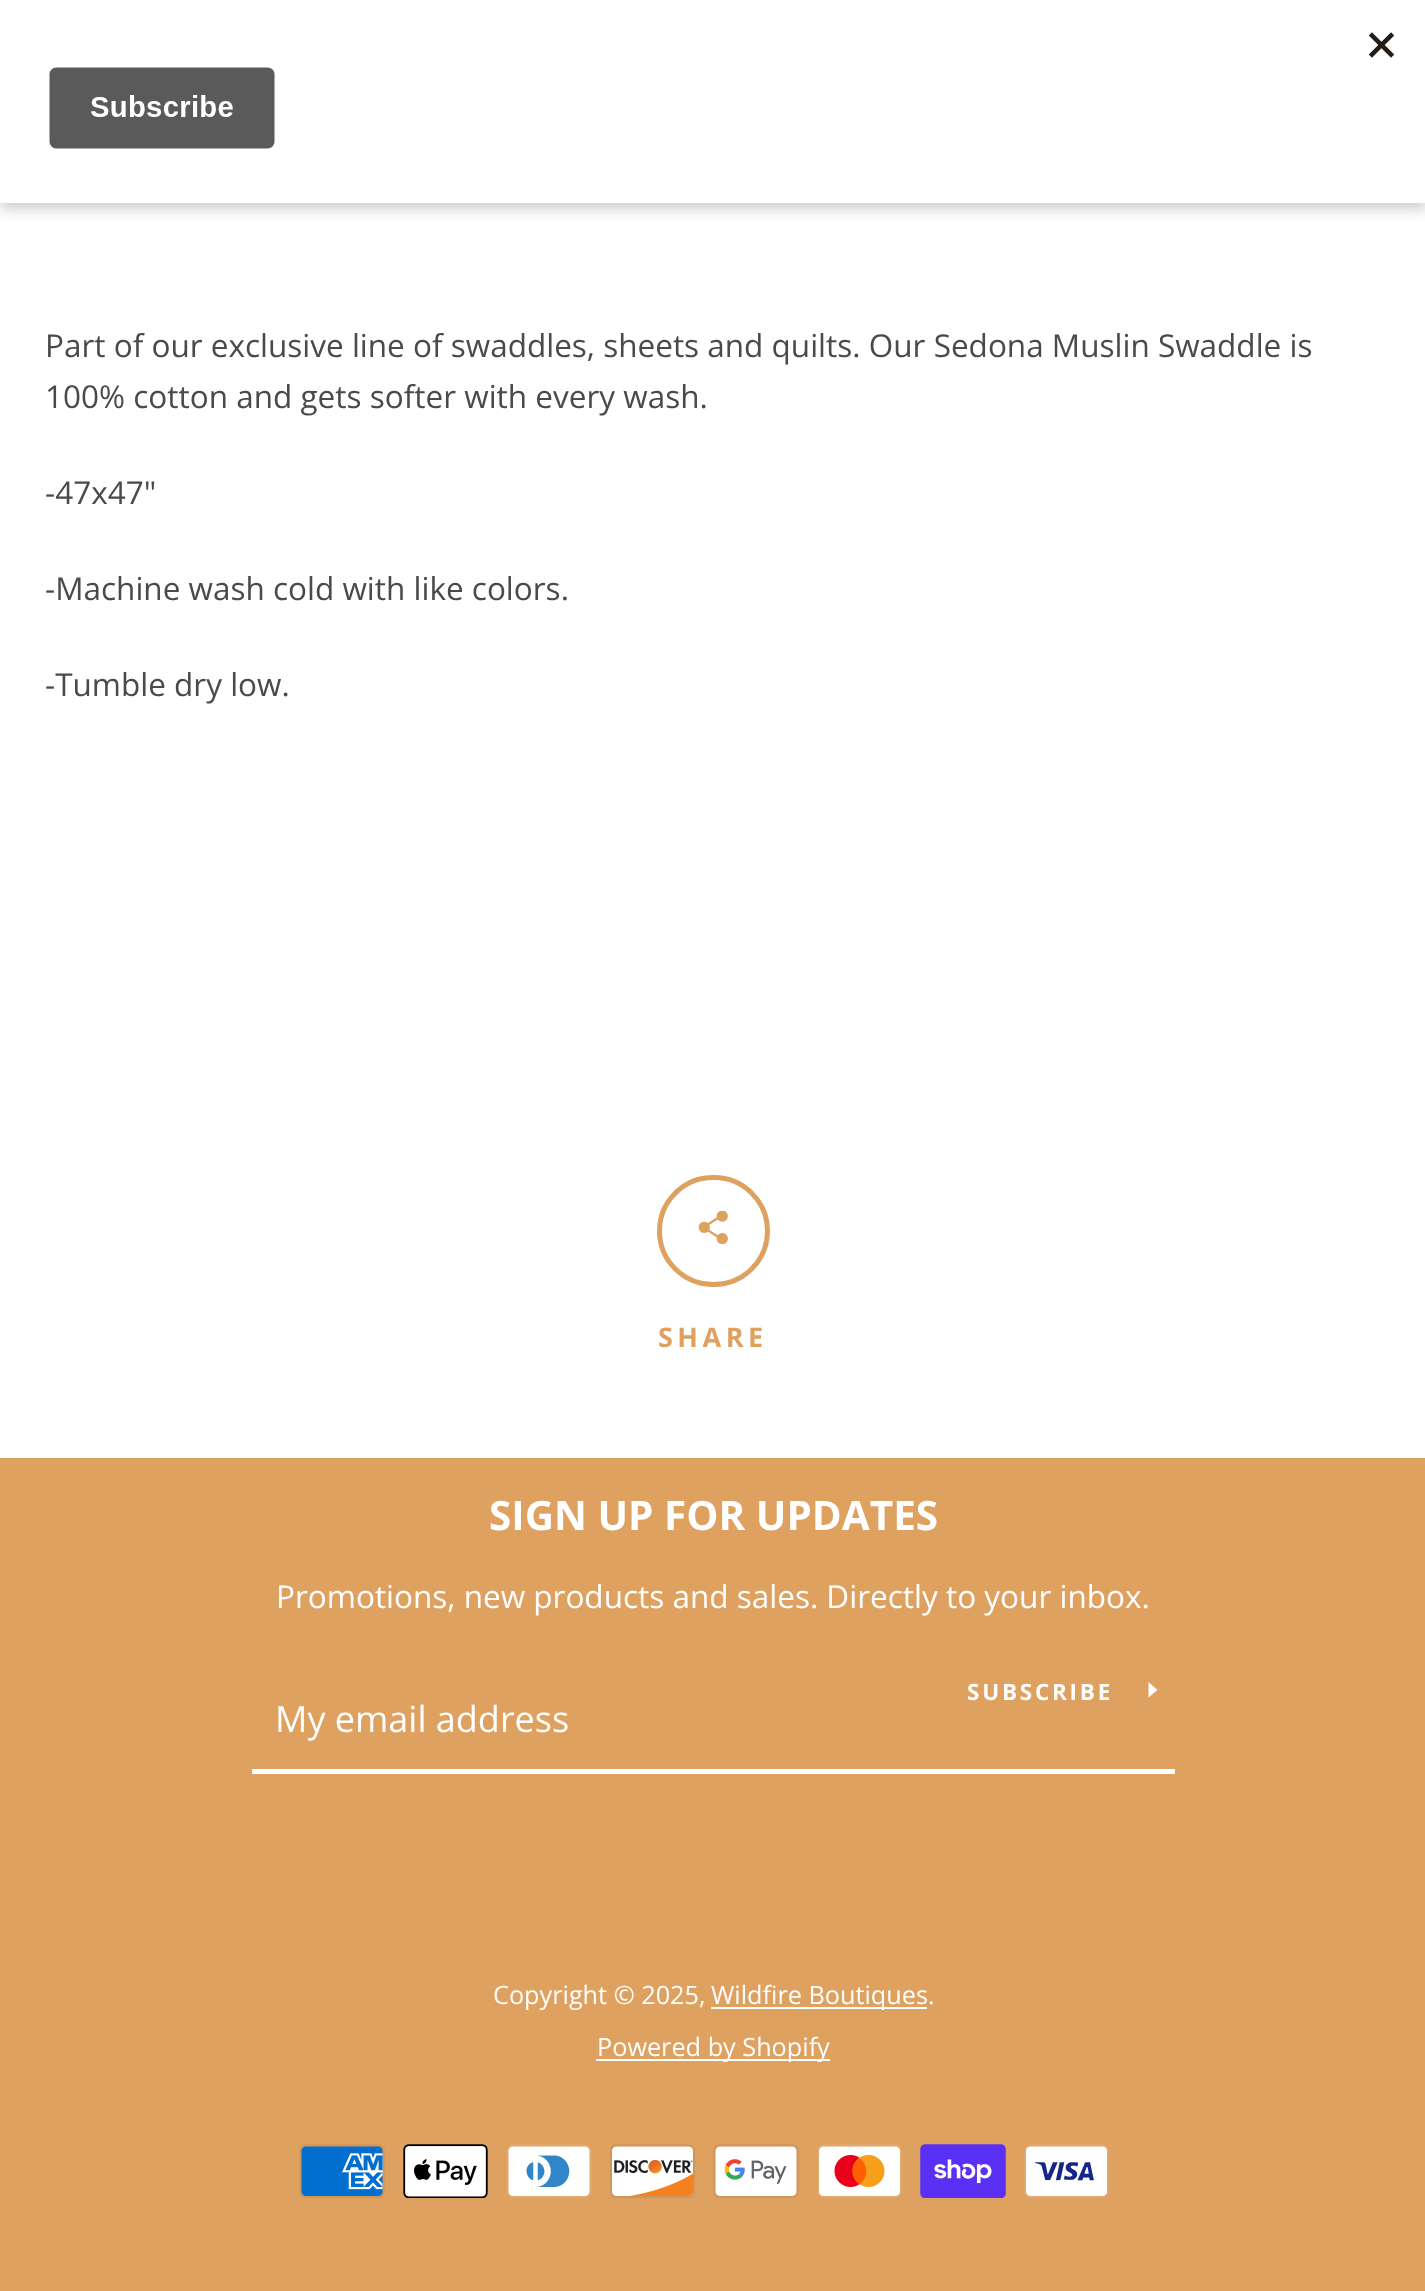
<svg xmlns="http://www.w3.org/2000/svg" width="1425" height="2291">
<style>
.a{font:31.5px Open Sans;fill:#4a4a4a}
.b{font:bold 27px Open Sans;letter-spacing:4.5px;fill:#dfa160}
.c{font:bold 40.5px Open Sans;fill:#fff}
.d{font:31.5px Open Sans;fill:#fff}
.e{font:bold 22.5px Open Sans;letter-spacing:2.75px;fill:#fff}
.f{font:36px Open Sans;fill:#fff}
.g{font:25.25px Open Sans;fill:#fff}
</style>
<rect width="100%" height="100%" fill="#dfa160"/>
<path fill="#fff" d="M0 203h1425v1255H0z"/>
<path fill="#00000033" filter="blur(7px)" d="M0 7h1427v202H0z"/>
<path fill="#fff" d="M0 0h1425v203H0z"/>
<image href="1.png" x="49" y="32" width="1346" height="117"/>
<rect fill="none" stroke="#dfa160" stroke-width="5" x="659.5" y="1177.5" width="108" height="107" rx="53.5"/>
<image href="2.png" x="698" y="1211" width="30" height="33"/>
<path fill="#fff" d="M252 1769h923v5H252z"/>
<path fill="#fff" d="M1157.5 1690l-9 7.5v-15.5z"/>
<path fill="#fff" d="M711 2007h216v2H711z"/>
<path fill="#fff" d="M596 2059h234v2H596z"/>
<image href="3.png" x="299" y="2144" width="86" height="54"/>
<image href="4.png" x="403" y="2144" width="85" height="54"/>
<image href="5.png" x="506" y="2144" width="86" height="54"/>
<image href="6.png" x="610" y="2144" width="85" height="54"/>
<image href="7.png" x="713" y="2144" width="86" height="54"/>
<image href="8.png" x="817" y="2144" width="85" height="54"/>
<image href="9.png" x="920" y="2144" width="86" height="54"/>
<image href="10.png" x="1024" y="2144" width="85" height="54"/>
<text class="a" x="45" y="357">Part of our exclusive line of swaddles, sheets and quilts. Our Sedona Muslin Swaddle is</text>
<text class="a" x="45" y="408">100% cotton and gets softer with every wash.</text>
<text class="a" x="45" y="504">-47x47"</text>
<text class="a" x="45" y="600">-Machine wash cold with like colors.</text>
<text class="a" x="45" y="696">-Tumble dry low.</text>
<text class="b" x="658" y="1347">SHARE</text>
<text class="c" x="489" y="1530">SIGN UP FOR UPDATES</text>
<text class="d" x="276" y="1608">Promotions, new products and sales. Directly to your inbox.</text>
<text class="e" x="967" y="1700">SUBSCRIBE</text>
<text class="f" x="275" y="1732">My email address</text>
<text class="g" x="493" y="2004">Copyright © 2025,</text>
<text class="g" x="711" y="2004">Wildfire Boutiques.</text>
<text class="g" x="597" y="2056">Powered by Shopify</text>
</svg>
